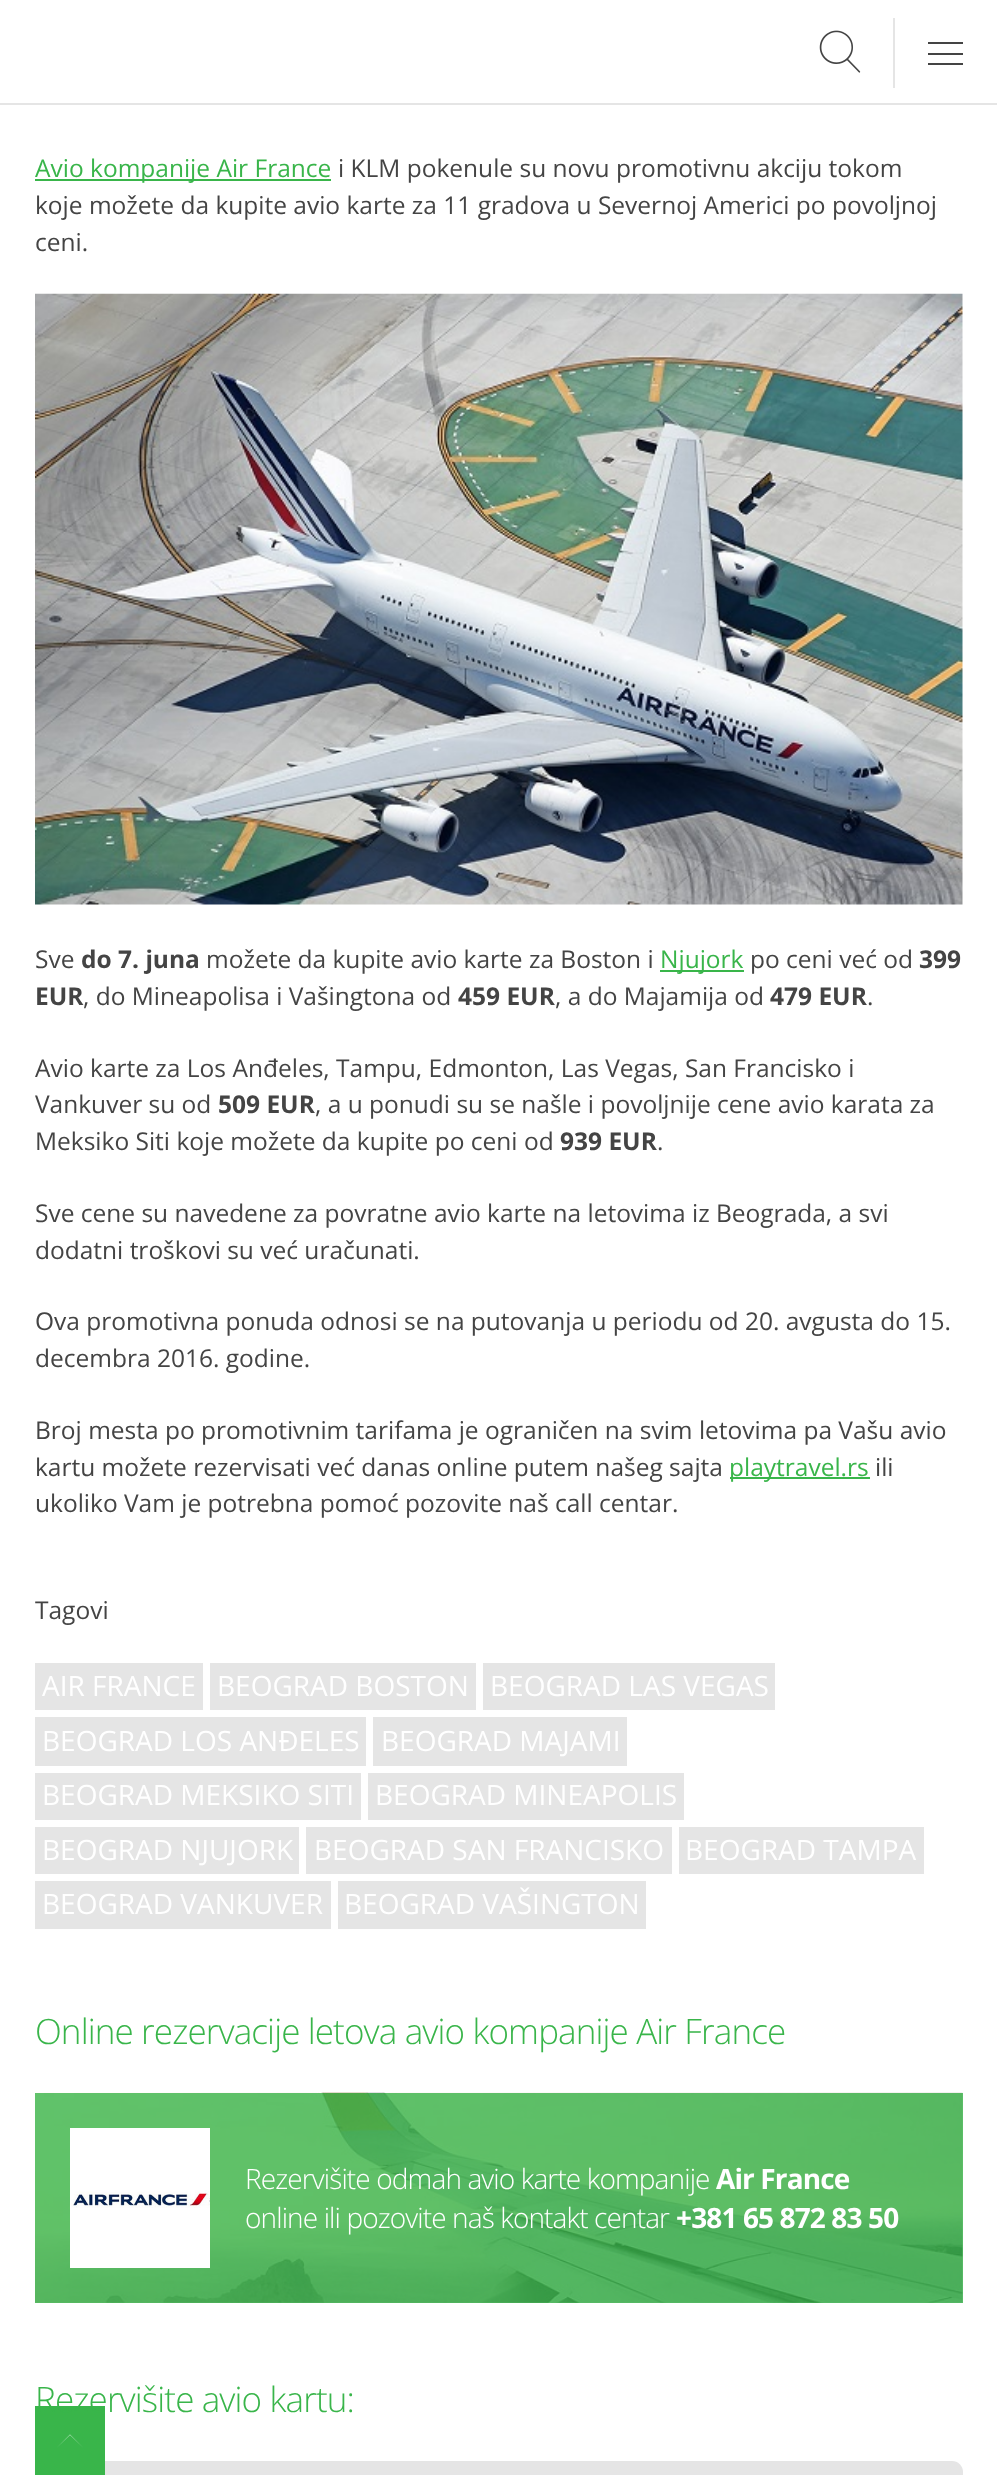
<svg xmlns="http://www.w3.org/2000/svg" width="997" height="2475">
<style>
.a{font:24.5px Open Sans;fill:#39b54a}
.b{font:24.5px Open Sans;fill:#444}
.c{font:bold 24.5px Open Sans;fill:#444}
.d{font:28px Open Sans;fill:#fff}
.e{font:300 35px Open Sans;letter-spacing:-0.88px;fill:#39b54a}
.f{font:300 28px Open Sans;letter-spacing:-0.88px;fill:#fff}
.g{font:bold 28px Open Sans;letter-spacing:-0.88px;fill:#fff}
</style>
<rect width="100%" height="100%" fill="#fff"/>
<path fill="#61c46e" d="M35 2093h928v210H35z"/>
<image href="1.png" x="819" y="30" width="42" height="43"/>
<path fill="#e5e5e5" d="M893 18h2v70H893z"/>
<path fill="#444" d="M928 53h35v2H928z"/>
<path fill="#444" d="M928 42h35v2H928z"/>
<path fill="#444" d="M928 63h35v2H928z"/>
<path fill="#e5e5e5" d="M0 103h997v2H0z"/>
<path fill="#39b54a" d="M35 179h296v2H35z"/>
<image href="2.png" x="35" y="293" width="928" height="612"/>
<path fill="#39b54a" d="M660 970h84v2H660z"/>
<path fill="#39b54a" d="M730 1477h140v2H730z"/>
<path fill="#e5e5e5" d="M35 1663h168v47H35z"/>
<path fill="#e5e5e5" d="M210 1663h266v47H210z"/>
<path fill="#e5e5e5" d="M483 1663h292v47H483z"/>
<path fill="#e5e5e5" d="M35 1717h331v49H35z"/>
<path fill="#e5e5e5" d="M373 1717h254v49H373z"/>
<path fill="#e5e5e5" d="M35 1773h326v47H35z"/>
<path fill="#e5e5e5" d="M368 1773h316v47H368z"/>
<path fill="#e5e5e5" d="M35 1827h264v47H35z"/>
<path fill="#e5e5e5" d="M306 1827h366v47H306z"/>
<path fill="#e5e5e5" d="M679 1827h245v47H679z"/>
<path fill="#e5e5e5" d="M35 1881h296v48H35z"/>
<path fill="#e5e5e5" d="M338 1881h308v48H338z"/>
<image href="3.png" x="35" y="2092" width="928" height="211"/>
<path fill="#fff" d="M70 2128h140v140H70z"/>
<image href="4.png" x="71" y="2190" width="139" height="18"/>
<rect fill="#e5e5e5" x="35" y="2461" width="928" height="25" rx="11"/>
<path fill="#39b54a" d="M35 2406h70v69H35z"/>
<path fill="#fff" d="M83.5 2448l-13.5-13l-13.5 13l13.5-13.5z"/>
<text class="a" x="35" y="177">Avio kompanije Air France</text>
<text class="b" x="338" y="177">i KLM pokenule su novu promotivnu akciju tokom</text>
<text class="b" x="35" y="214">koje možete da kupite avio karte za 11 gradova u Severnoj Americi po povoljnoj</text>
<text class="b" x="35" y="251">ceni.</text>
<text class="b" x="35" y="968">Sve</text>
<text class="c" x="81" y="968">do 7. juna</text>
<text class="b" x="206" y="968">možete da kupite avio karte za Boston i</text>
<text class="a" x="660" y="968">Njujork</text>
<text class="b" x="750" y="968">po ceni već od</text>
<text class="c" x="919" y="968">399</text>
<text class="c" x="35" y="1005">EUR</text>
<text class="b" x="83" y="1005">, do Mineapolisa i Vašingtona od</text>
<text class="c" x="458" y="1005">459 EUR</text>
<text class="b" x="555" y="1005">, a do Majamija od</text>
<text class="c" x="770" y="1005">479 EUR</text>
<text class="b" x="867" y="1005">.</text>
<text class="b" x="35" y="1077">Avio karte za Los Anđeles, Tampu, Edmonton, Las Vegas, San Francisko i</text>
<text class="b" x="35" y="1113">Vankuver su od</text>
<text class="c" x="218" y="1113">509 EUR</text>
<text class="b" x="315" y="1113">, a u ponudi su se našle i povoljnije cene avio karata za</text>
<text class="b" x="35" y="1150">Meksiko Siti koje možete da kupite po ceni od</text>
<text class="c" x="560" y="1150">939 EUR</text>
<text class="b" x="657" y="1150">.</text>
<text class="b" x="35" y="1222">Sve cene su navedene za povratne avio karte na letovima iz Beograda, a svi</text>
<text class="b" x="35" y="1259">dodatni troškovi su već uračunati.</text>
<text class="b" x="35" y="1330">Ova promotivna ponuda odnosi se na putovanja u periodu od 20. avgusta do 15.</text>
<text class="b" x="35" y="1367">decembra 2016. godine.</text>
<text class="b" x="35" y="1439">Broj mesta po promotivnim tarifama je ograničen na svim letovima pa Vašu avio</text>
<text class="b" x="35" y="1476">kartu možete rezervisati već danas online putem našeg sajta</text>
<text class="a" x="729" y="1476">playtravel.rs</text>
<text class="b" x="875" y="1476">ili</text>
<text class="b" x="35" y="1512">ukoliko Vam je potrebna pomoć pozovite naš call centar.</text>
<text class="b" x="35" y="1619">Tagovi</text>
<text class="d" x="42" y="1696">AIR FRANCE</text>
<text class="d" x="217" y="1696">BEOGRAD BOSTON</text>
<text class="d" x="490" y="1696">BEOGRAD LAS VEGAS</text>
<text class="d" x="42" y="1751">BEOGRAD LOS ANĐELES</text>
<text class="d" x="381" y="1751">BEOGRAD MAJAMI</text>
<text class="d" x="42" y="1805">BEOGRAD MEKSIKO SITI</text>
<text class="d" x="375" y="1805">BEOGRAD MINEAPOLIS</text>
<text class="d" x="42" y="1860">BEOGRAD NJUJORK</text>
<text class="d" x="314" y="1860">BEOGRAD SAN FRANCISKO</text>
<text class="d" x="685" y="1860">BEOGRAD TAMPA</text>
<text class="d" x="42" y="1914">BEOGRAD VANKUVER</text>
<text class="d" x="344" y="1914">BEOGRAD VAŠINGTON</text>
<text class="e" x="35" y="2044">Online rezervacije letova avio kompanije Air France</text>
<text class="f" x="245" y="2189">Rezervišite odmah avio karte kompanije</text>
<text class="g" x="716" y="2189">Air France</text>
<text class="f" x="245" y="2228">online ili pozovite naš kontakt centar</text>
<text class="g" x="676" y="2228">+381 65 872 83 50</text>
<text class="e" x="35" y="2412">Rezervišite avio kartu:</text>
</svg>
